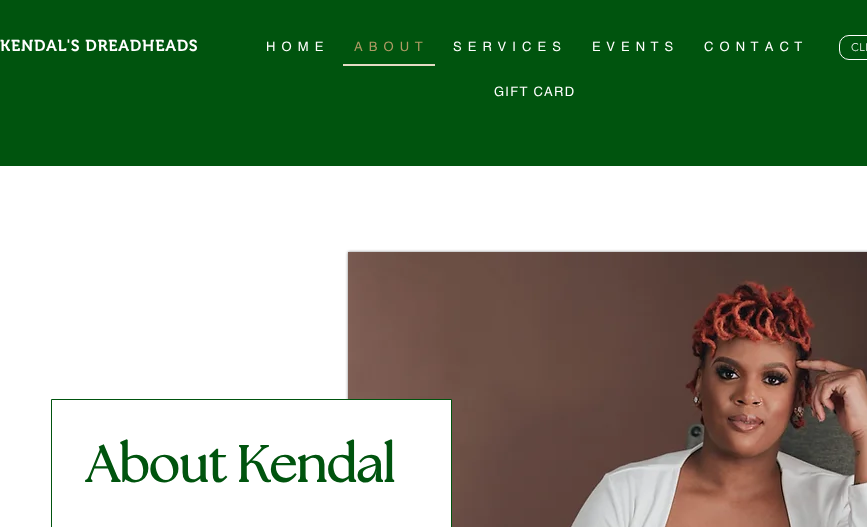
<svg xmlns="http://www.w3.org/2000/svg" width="867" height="527">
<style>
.a{font:600 16px 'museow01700';letter-spacing:0.75px;fill:#fff}
.b{font:13px helvetica;letter-spacing:1.25px;fill:#fff}
.c{font:13px helvetica;letter-spacing:1.25px;fill:#ae9a64}
.d{font:300 11px 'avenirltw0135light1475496';letter-spacing:0.5px;fill:#fff}
.e{font:bold 51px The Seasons;fill:#00540e}
</style>
<rect width="100%" height="100%" fill="#fff"/>
<path fill="#00540e" d="M0 0h867v166H0z"/>
<path fill="#e4dbc4" d="M343 64h92v2H343z"/>
<rect fill="none" stroke="#fff" x="839.5" y="35.5" width="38" height="24" rx="9.5"/>
<path fill="#00000080" filter="blur(1.5px)" d="M348 252h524v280H348z"/>
<image href="1.png" x="348" y="252" width="519" height="275"/>
<path fill="#fff" d="M345 400h106v127H345z"/>
<path fill="none" stroke="#00540e" d="M51.5 399.5h400v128H51.5z"/>
<text class="a" x="0" y="51">KENDAL'S DREADHEADS</text>
<text class="b" x="266" y="51">H O M E</text>
<text class="c" x="354" y="51">A B O U T</text>
<text class="b" x="453" y="51">S E R V I C E S</text>
<text class="b" x="592" y="51">E V E N T S</text>
<text class="b" x="704" y="51">C O N T A C T</text>
<text class="b" x="494" y="96">GIFT CARD</text>
<text class="d" x="851" y="51">CLI</text>
<text class="e" x="86" y="482">About Kendal</text>
</svg>
